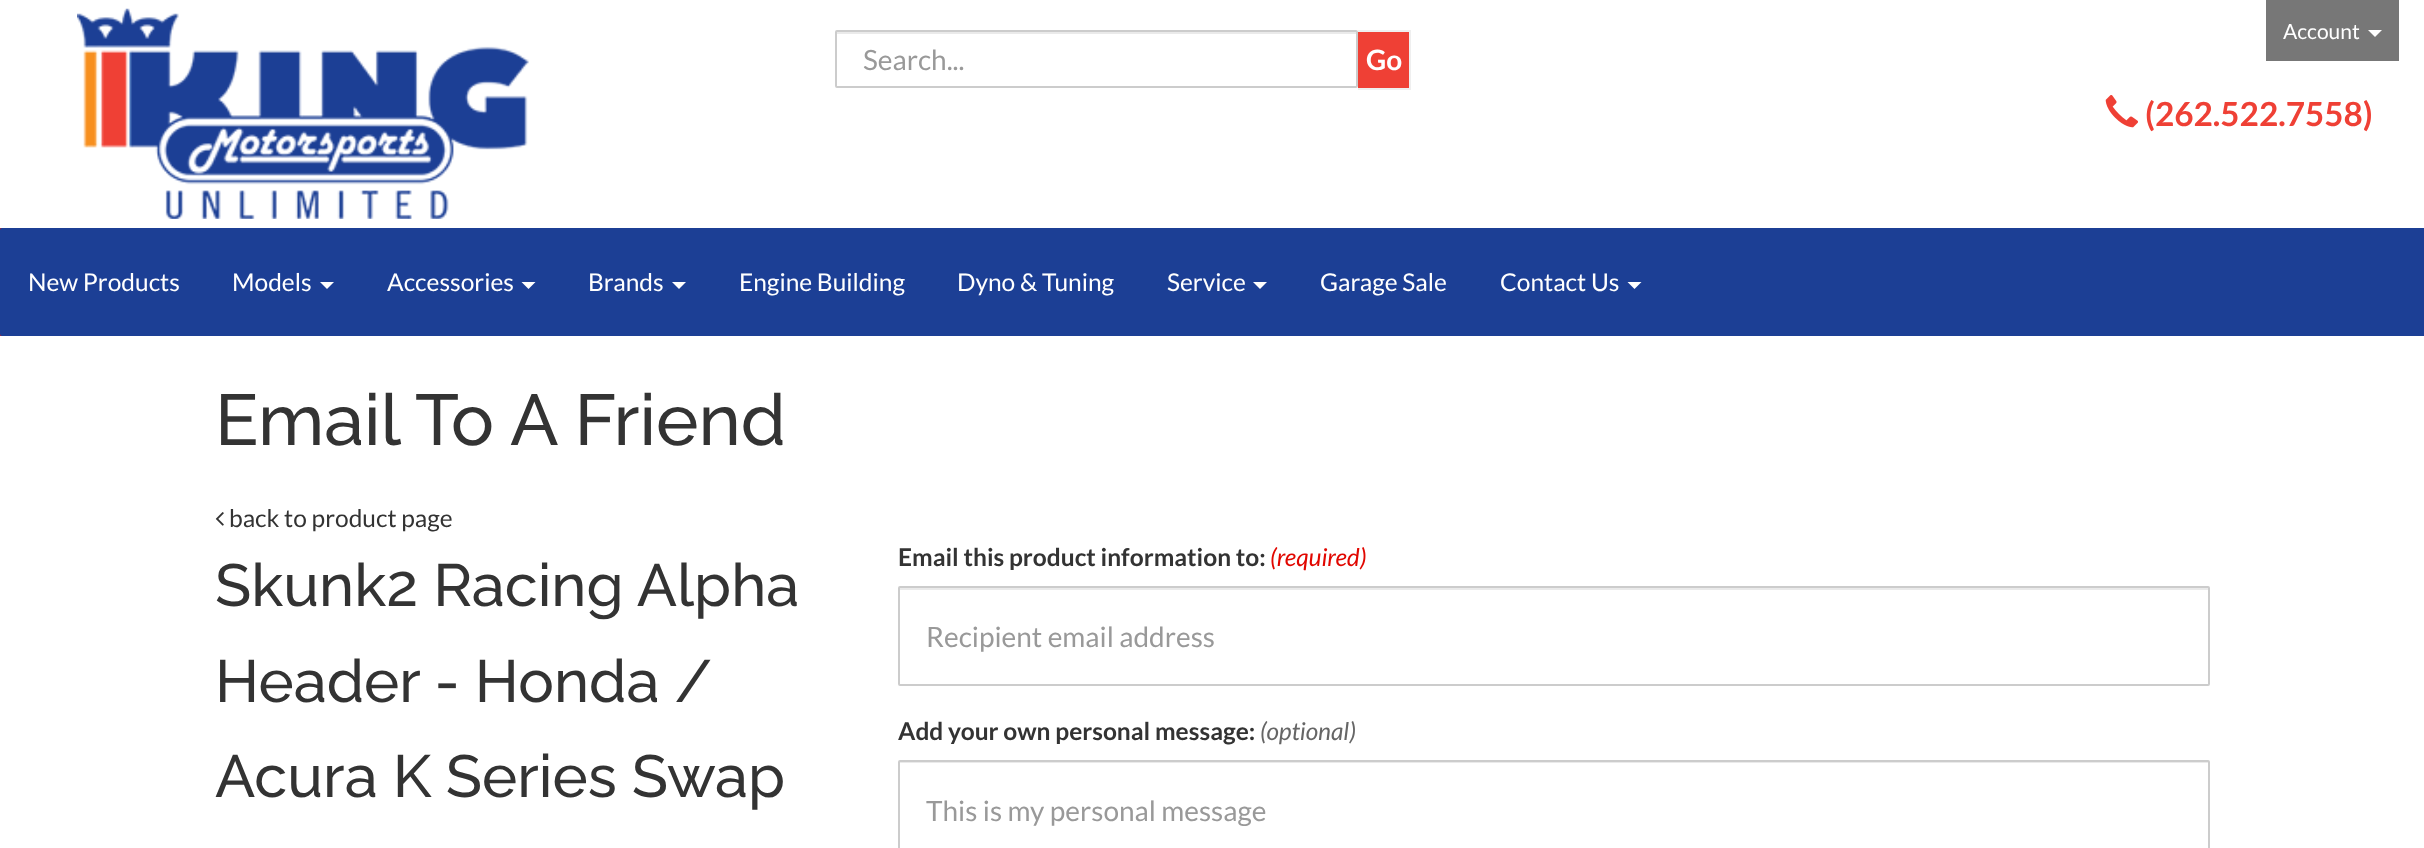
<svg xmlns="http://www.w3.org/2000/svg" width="2424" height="848">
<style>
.a{font:28px Lato;fill:#999}
.b{font:bold 28px Lato;fill:#fff}
.c{font:21px Lato;fill:#fff}
.d{font:bold 33.25px Lato;fill:#ef4035}
.e{font:24.5px Lato;fill:#fff}
.f{font:500 71.75px Raleway;fill:#333}
.g{font:24.5px Lato;fill:#333}
.h{font:500 59.5px Raleway;fill:#333}
.i{font:bold 24.5px Lato;fill:#333}
.j{font:italic 24.5px Lato;fill:#e10700}
.k{font:italic 24.5px Lato;fill:#666}
</style>
<rect width="100%" height="100%" fill="#fff"/>
<image href="1.png" x="77" y="8" width="452" height="211"/>
<path fill="#eaeaea" d="M837 32h519v2H837z"/>
<rect fill="none" stroke="#ccc" stroke-width="2" x="836" y="31" width="521" height="56" rx="1"/>
<path fill="#ef4035" d="M1358 32h51v56H1358z"/>
<path fill="#efefef" d="M1358 30h53v2H1358z"/>
<path fill="#efefef" d="M1409 30h2v59H1409z"/>
<path fill="#efefef" d="M1358 88h53v2H1358z"/>
<path fill="#777" d="M2266 0h133v61H2266z"/>
<path fill="#fff" d="M2368 30h14l-7 7z"/>
<image href="2.png" x="2105" y="95" width="33" height="33"/>
<path fill="#be202e" d="M0 228h2v108H0z"/>
<rect fill="#1c3f95" stroke="#1c3f95" stroke-width="2" x="1" y="229" width="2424" height="106" rx="1"/>
<path fill="#fff" d="M320 282h14l-7 7z"/>
<path fill="#fff" d="M521.5 282h14l-7 7z"/>
<path fill="#fff" d="M672 282h14l-7 7z"/>
<path fill="#fff" d="M1253 282h14l-7 7z"/>
<path fill="#fff" d="M1627.5 282h14l-7 7z"/>
<image href="3.png" x="215" y="512" width="9" height="14"/>
<path fill="#eaeaea" d="M900 588h1309v2H900z"/>
<rect fill="none" stroke="#ccc" stroke-width="2" x="899" y="587" width="1310" height="98" rx="1"/>
<path fill="#eaeaea" d="M900 762h1309v1H900z"/>
<rect fill="none" stroke="#ccc" stroke-width="2" x="899" y="761" width="1310" height="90" rx="1"/>
<text class="a" x="863" y="70">Search...</text>
<text class="b" x="1366" y="70">Go</text>
<text class="c" x="2283" y="39">Account</text>
<text class="d" x="2145" y="126">(262.522.7558)</text>
<text class="e" x="28" y="291">New Products</text>
<text class="e" x="232" y="291">Models</text>
<text class="e" x="387" y="291">Accessories</text>
<text class="e" x="588" y="291">Brands</text>
<text class="e" x="739" y="291">Engine Building</text>
<text class="e" x="957" y="291">Dyno &amp; Tuning</text>
<text class="e" x="1167" y="291">Service</text>
<text class="e" x="1320" y="291">Garage Sale</text>
<text class="e" x="1500" y="291">Contact Us</text>
<text class="f" x="215" y="445">Email To A Friend</text>
<text class="g" x="229" y="527">back to product page</text>
<text class="h" x="215" y="606">Skunk2 Racing Alpha</text>
<text class="h" x="215" y="702">Header - Honda /</text>
<text class="h" x="215" y="797">Acura K Series Swap</text>
<text class="i" x="898" y="566">Email this product information to:</text>
<text class="j" x="1270" y="566">(required)</text>
<text class="a" x="926" y="647">Recipient email address</text>
<text class="i" x="898" y="740">Add your own personal message:</text>
<text class="k" x="1260" y="740">(optional)</text>
<text class="a" x="926" y="821">This is my personal message</text>
</svg>
